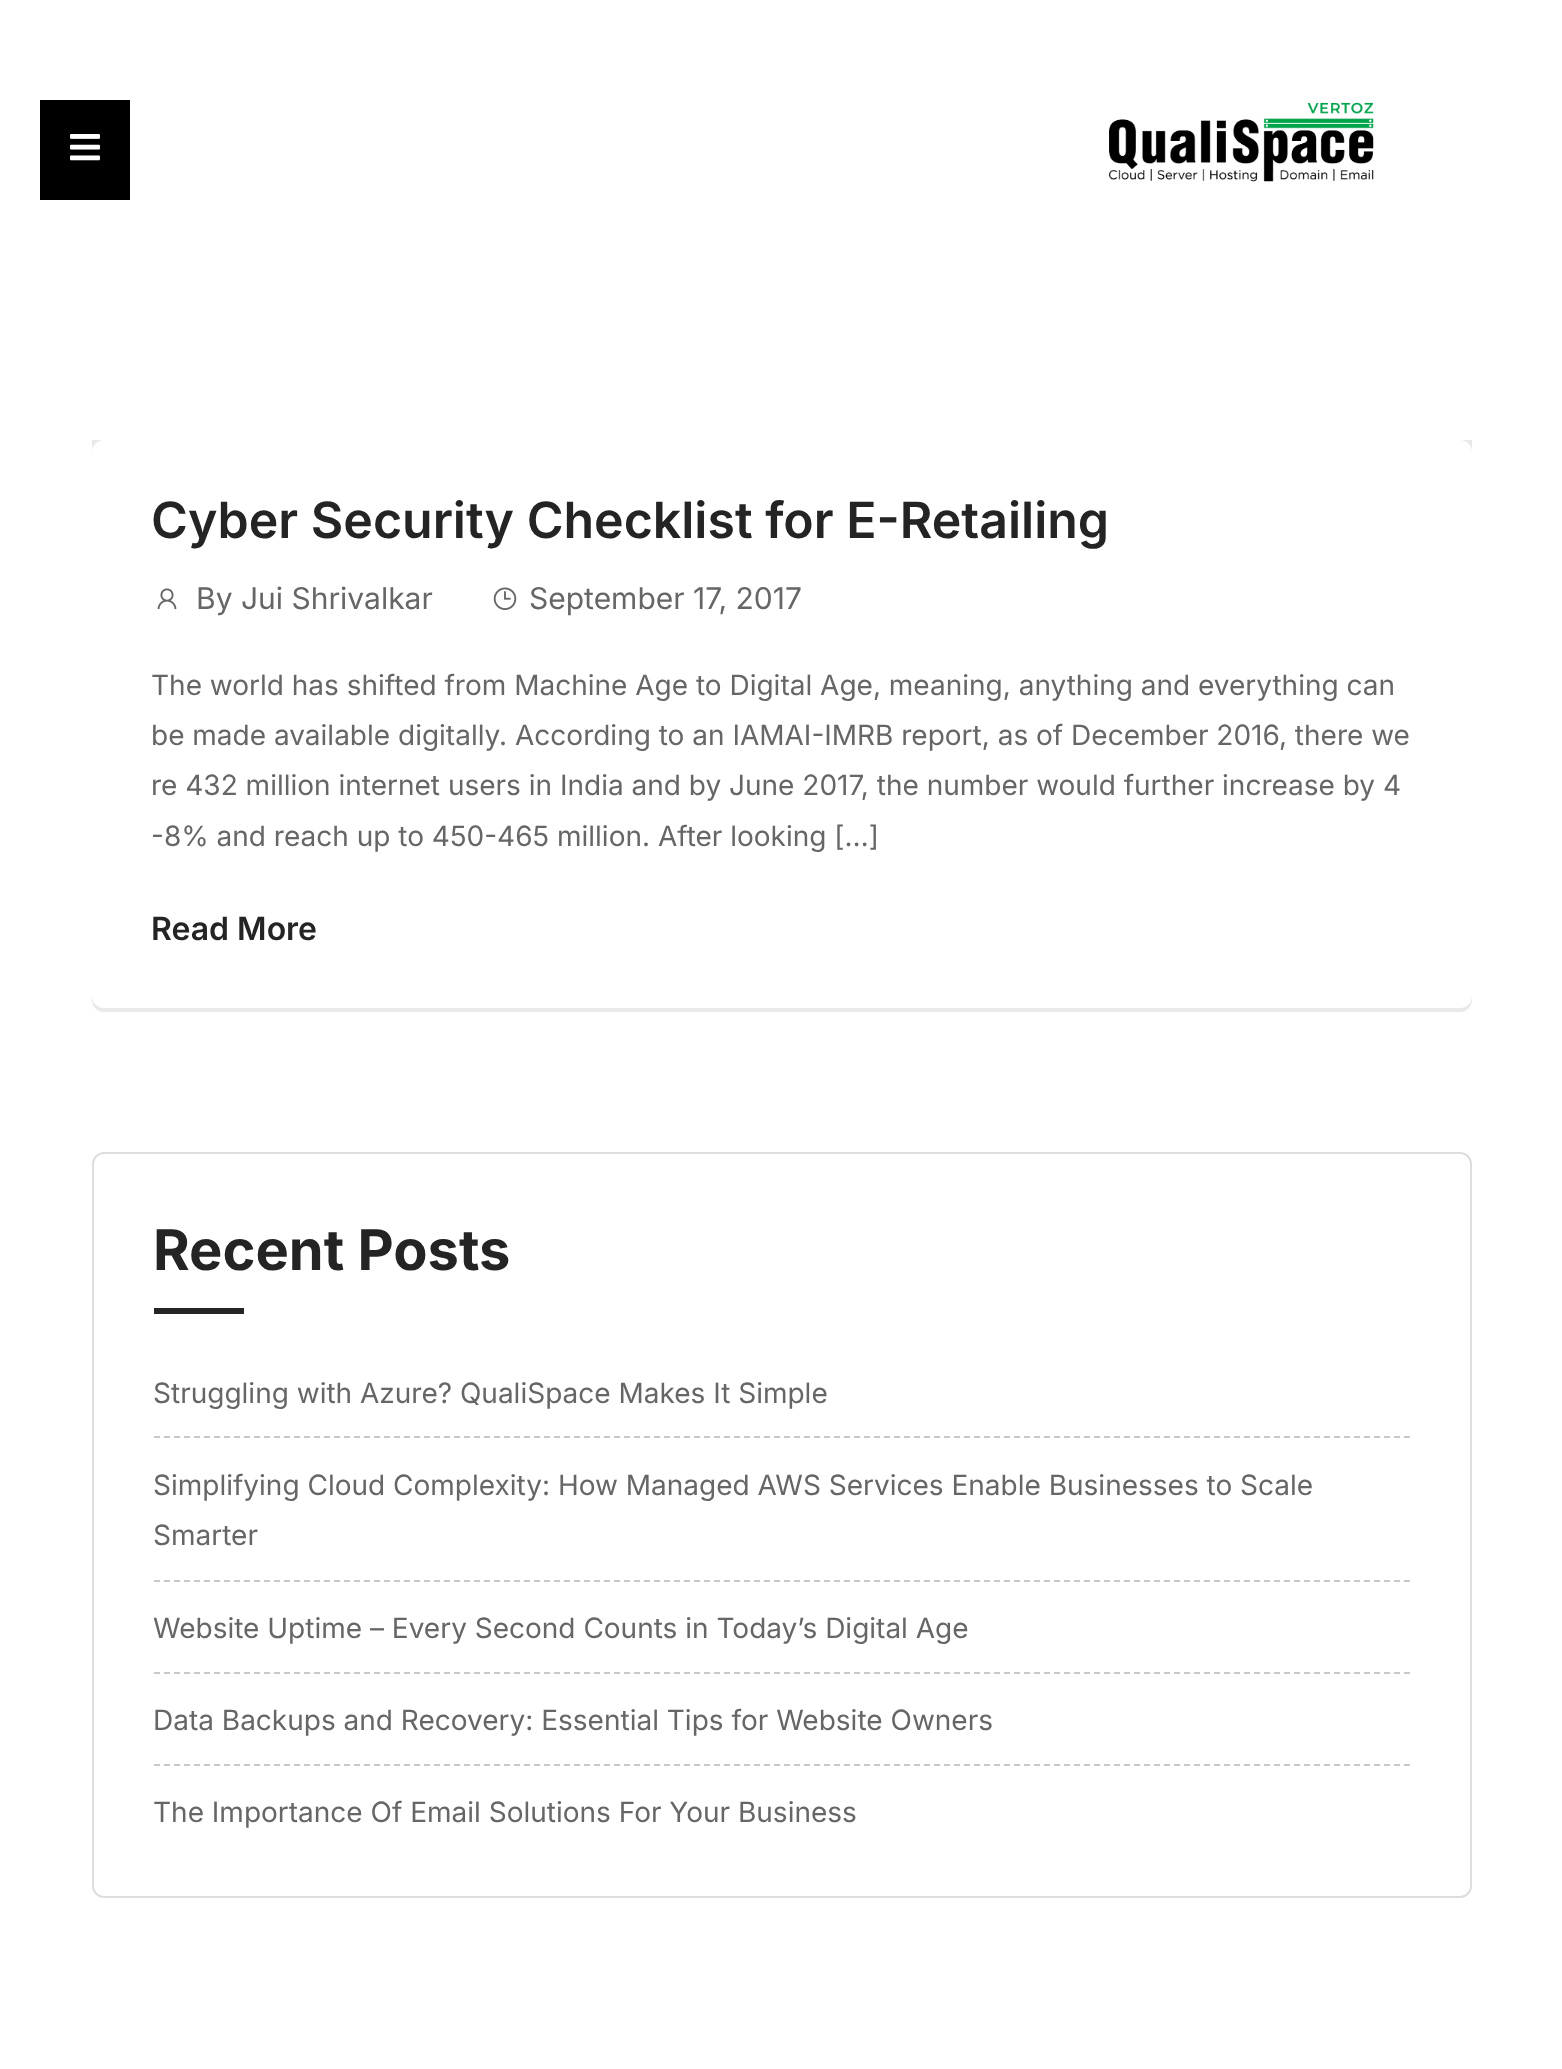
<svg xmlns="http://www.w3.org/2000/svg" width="1562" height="2069">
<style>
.a{font:600 50px Inter;fill:#242424}
.b{font:30px Inter;fill:#666}
.c{font:28px Inter;fill:#666}
.d{font:600 32px Inter;fill:#242424}
.e{font:bold 56px Inter;fill:#242424}
</style>
<rect width="100%" height="100%" fill="#fff"/>
<path fill="#000" d="M40 100h90v100H40z"/>
<image href="1.png" x="70" y="134" width="30" height="27"/>
<image href="2.png" x="1109" y="102" width="265" height="80"/>
<rect fill="#e9e9e9" x="92" y="380" width="1380" height="632" rx="12"/>
<path fill="#fff" d="M92 380h1380v60H92z"/>
<rect fill="#fff" x="92" y="440" width="1380" height="568" rx="12"/>
<image href="3.png" x="157" y="588" width="20" height="22"/>
<image href="4.png" x="493" y="587" width="24" height="23"/>
<rect fill="none" stroke="#ddd" stroke-width="2" x="93" y="1153" width="1378" height="744" rx="11"/>
<path fill="#242424" d="M154 1308h90v6H154z"/>
<path fill="none" stroke="#c9c9c9" stroke-width="2" stroke-dasharray="6 4" d="M154 1437h1256"/>
<path fill="none" stroke="#c9c9c9" stroke-width="2" stroke-dasharray="6 4" d="M154 1581h1256"/>
<path fill="none" stroke="#c9c9c9" stroke-width="2" stroke-dasharray="6 4" d="M154 1673h1256"/>
<path fill="none" stroke="#c9c9c9" stroke-width="2" stroke-dasharray="6 4" d="M154 1765h1256"/>
<text class="a" x="151" y="538">Cyber Security Checklist for E-Retailing</text>
<text class="b" x="196" y="609">By Jui Shrivalkar</text>
<text class="b" x="529" y="609">September 17, 2017</text>
<text class="c" x="151" y="695">The world has shifted from Machine Age to Digital Age, meaning, anything and everything can</text>
<text class="c" x="151" y="745">be made available digitally. According to an IAMAI-IMRB report, as of December 2016, there we</text>
<text class="c" x="151" y="795">re 432 million internet users in India and by June 2017, the number would further increase by 4</text>
<text class="c" x="151" y="846">-8% and reach up to 450-465 million. After looking […]</text>
<text class="d" x="151" y="940">Read More</text>
<text class="e" x="153" y="1270">Recent Posts</text>
<text class="c" x="153" y="1403">Struggling with Azure? QualiSpace Makes It Simple</text>
<text class="c" x="153" y="1495">Simplifying Cloud Complexity: How Managed AWS Services Enable Businesses to Scale</text>
<text class="c" x="153" y="1545">Smarter</text>
<text class="c" x="153" y="1638">Website Uptime – Every Second Counts in Today’s Digital Age</text>
<text class="c" x="153" y="1730">Data Backups and Recovery: Essential Tips for Website Owners</text>
<text class="c" x="153" y="1822">The Importance Of Email Solutions For Your Business</text>
</svg>
